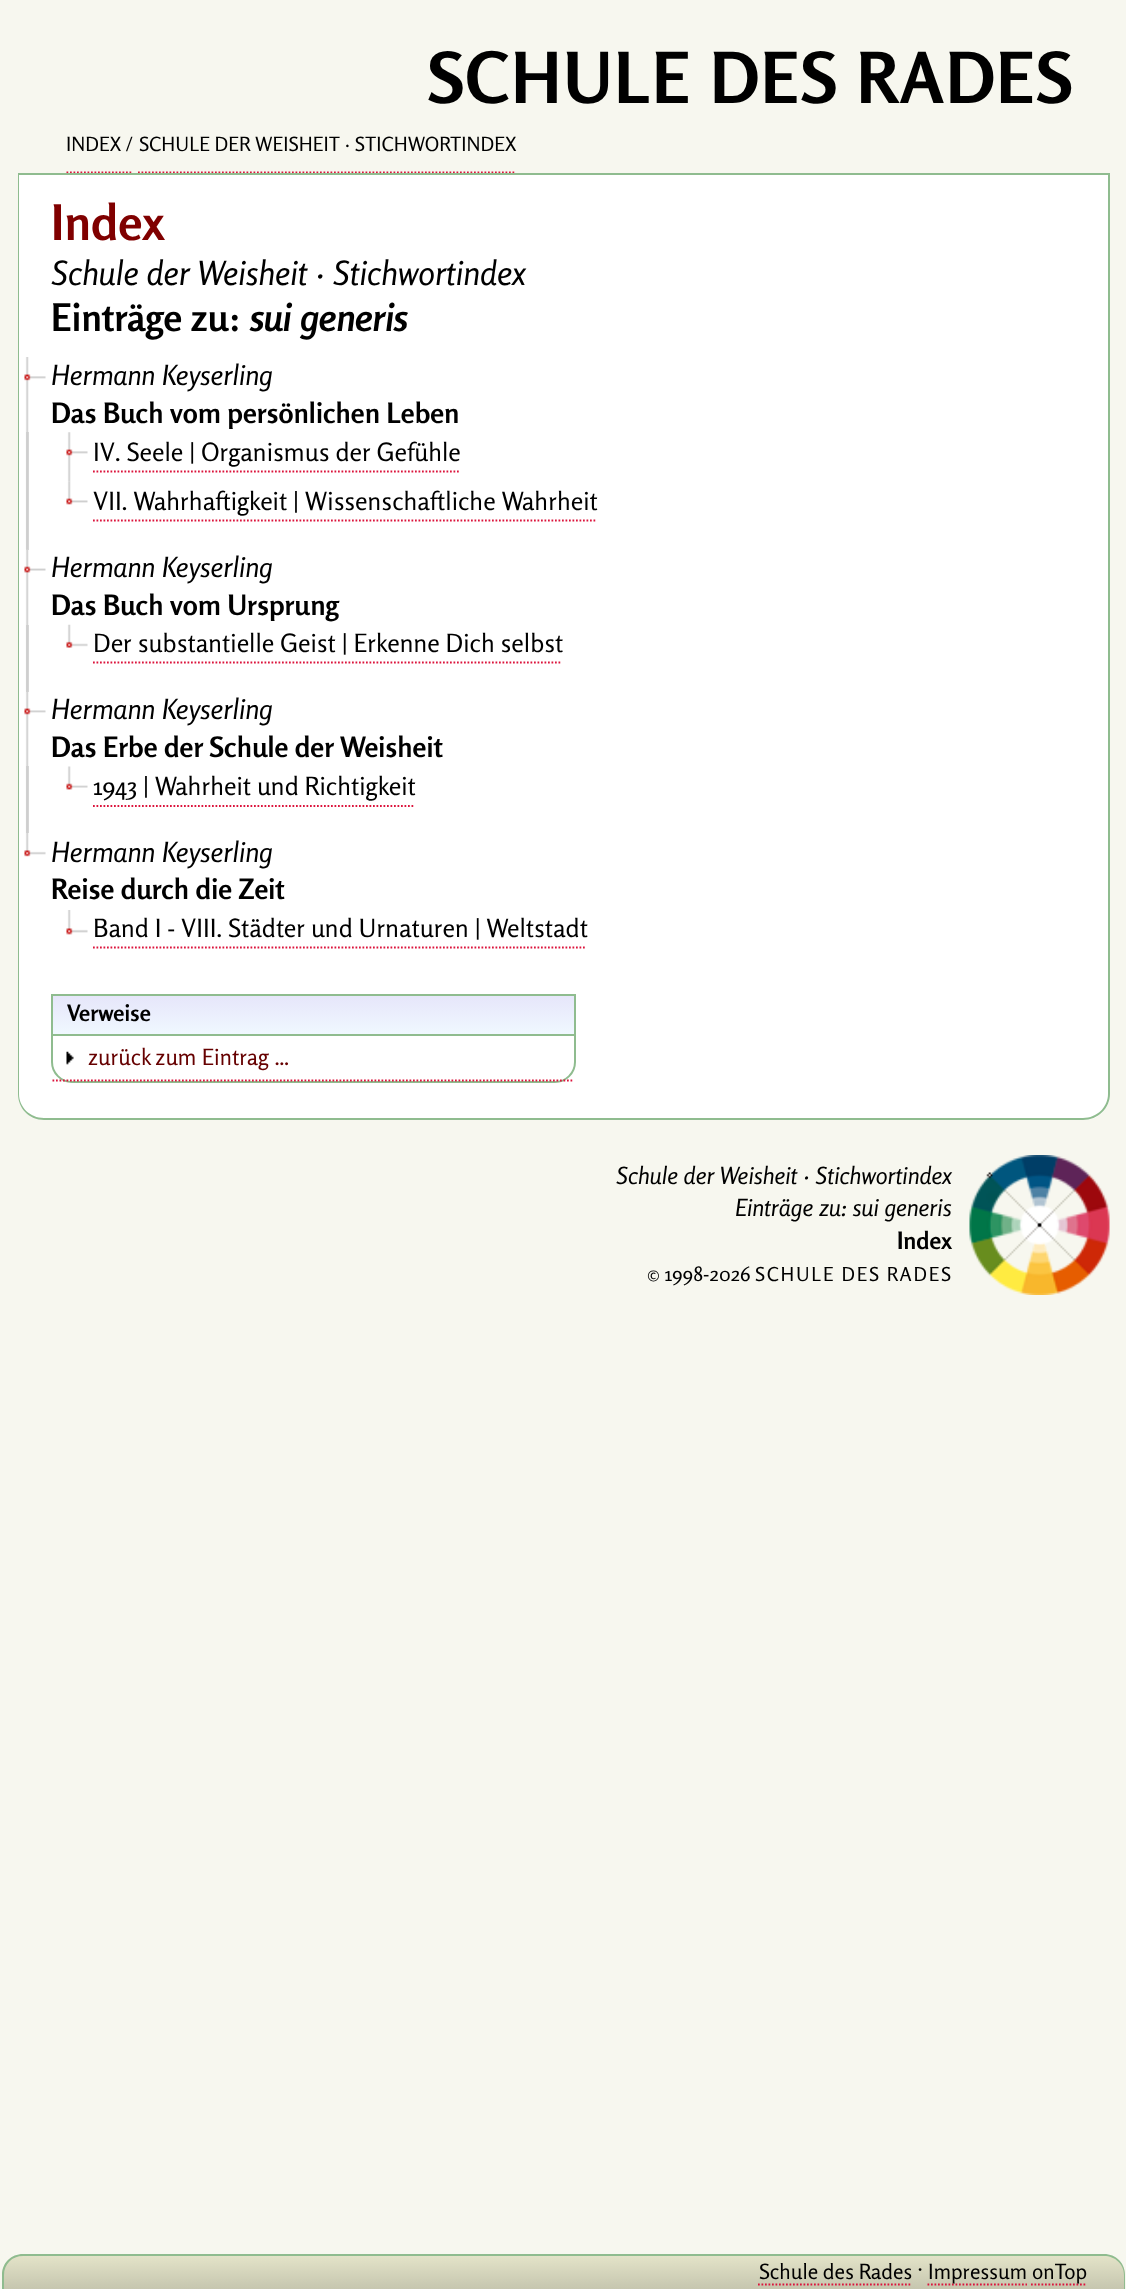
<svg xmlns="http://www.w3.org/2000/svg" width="1126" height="2289">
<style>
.a{font:bold 70px Rosario;letter-spacing:1.75px;fill:#000}
.b{font:19.6px Rosario;fill:#000}
.c{font:bold 49px Rosario;fill:#800000}
.d{font:italic 33.6px Rosario;fill:#000}
.e{font:bold 37.75px Rosario;fill:#000}
.f{font:italic bold 37.75px Rosario;fill:#000}
.g{font:italic 28px Rosario;fill:#000}
.h{font:bold 28px Rosario;fill:#000}
.i{font:25.25px Rosario;fill:#000}
.j{font:bold 22.5px Rosario;fill:#000}
.k{font:22.5px Rosario;fill:#600}
.l{font:italic 23.75px Rosario;fill:#000}
.m{font:bold 23.75px Rosario;fill:#000}
.n{font:20.25px Rosario;fill:#000}
.o{font:19.25px Rosario;letter-spacing:1.75px;fill:#000}
.p{font:21px Rosario;fill:#000}
</style>
<defs>
<clipPath id="clip1"><path d="M18 112h1092v61H18z"/></clipPath>
<linearGradient id="g1" gradientUnits="userSpaceOnUse" x1="313" y1="996" x2="313" y2="1034"><stop offset="0" stop-color="#e6e6fa"/><stop offset="1" stop-color="#f0f8ff"/></linearGradient>
<clipPath id="clip2"><path d="M23 2254h1081c11.5 0 21 9.5 21 21v14h-1123v-14c0-11.5 9.5-21 21-21z"/></clipPath>
<linearGradient id="g2" gradientUnits="userSpaceOnUse" x1="564" y1="2289" x2="564" y2="2256"><stop offset="0" stop-color="#c6c6af"/><stop offset="1" stop-color="#e3e3c8"/></linearGradient>
</defs>
<rect width="100%" height="100%" fill="#f7f7ef"/>
<path fill="#8fbc8f" d="M18 173h1092v2H18z"/>
<g clip-path="url(#clip1)">
<path fill="none" stroke="#dc143c" stroke-width="1.8" stroke-dasharray="1.75 1.75" d="M66.5 172.5h66.5"/>
<path fill="none" stroke="#dc143c" stroke-width="1.8" stroke-dasharray="1.75 1.75" d="M138 172.5h378"/>
</g>
<path fill="#fff" d="M18 175h1092v919c0 14.5-11.5 26-26 26h-1040c-14.5 0-26-11.5-26-26z"/>
<path fill="#8fbc8f" fill-rule="evenodd" d="M18 175h1092v919c0 14-12 26-27 26h-1039c-15 0-26-12-26-26zm1 0h1089v919c0 13-11 24-25 24h-1039c-14 0-25-11-25-24z"/>
<image href="1.png" x="24" y="357" width="22" height="193"/>
<path fill="#ccccccc7" d="M26 432h3v118H26z"/>
<image href="2.png" x="66" y="432" width="22" height="50"/>
<path fill="none" stroke="#dc143c" stroke-width="1.8" stroke-dasharray="1.75 1.75" d="M93 471.5h367"/>
<image href="3.png" x="66" y="481" width="22" height="24"/>
<path fill="none" stroke="#dc143c" stroke-width="1.8" stroke-dasharray="1.75 1.75" d="M93 520.5h504"/>
<image href="4.png" x="24" y="550" width="22" height="142"/>
<path fill="#ccccccc7" d="M26 625h3v67H26z"/>
<image href="5.png" x="66" y="624" width="22" height="24"/>
<path fill="none" stroke="#dc143c" stroke-width="1.8" stroke-dasharray="1.75 1.75" d="M93 662.5h469"/>
<image href="6.png" x="24" y="691" width="22" height="142"/>
<path fill="#ccccccc7" d="M26 766h3v67H26z"/>
<image href="7.png" x="66" y="766" width="22" height="24"/>
<path fill="none" stroke="#dc143c" stroke-width="1.8" stroke-dasharray="1.75 1.75" d="M93 806h322"/>
<image href="8.png" x="24" y="833" width="22" height="24"/>
<image href="9.png" x="66" y="910" width="22" height="25"/>
<path fill="none" stroke="#dc143c" stroke-width="1.8" stroke-dasharray="1.75 1.75" d="M93 947.5h493"/>
<path fill="none" stroke="#8fbc8f" stroke-width="2" d="M52 995h523v67c0 11-9 20-20 20h-483c-11 0-20-9-20-20z"/>
<path fill="url(#g1)" d="M53 996h521v38H53z"/>
<path fill="#8fbc8f" d="M53 1034h521v2H53z"/>
<image href="10.png" x="66" y="1051" width="8" height="14"/>
<path fill="none" stroke="#dc143c" stroke-width="1.8" stroke-dasharray="1.75 1.75" d="M52.5 1080.5h521.5"/>
<image href="11.png" x="969" y="1155" width="141" height="140"/>
<g clip-path="url(#clip2)">
<path fill="url(#g2)" d="M2 2256h1123v33H2z"/>
</g>
<path fill="#8fbc8f" fill-rule="evenodd" d="M23 2254h1081c12 0 21 9 21 21v14h-1123v-14c0-12 9-21 21-21zm0 2h1081c11 0 20 8 20 19v14h-1120v-14c0-11 8-19 19-19z"/>
<path fill="none" stroke="#dc143c" stroke-width="1.8" stroke-dasharray="1.75 1.75" d="M758 2284.5h154"/>
<path fill="none" stroke="#dc143c" stroke-width="1.8" stroke-dasharray="1.75 1.75" d="M927.5 2284.5h99.5"/>
<path fill="none" stroke="#dc143c" stroke-width="1.8" stroke-dasharray="1.75 1.75" d="M1031 2284.5h56"/>
<text class="a" x="428" y="103">SCHULE DES RADES</text>
<text class="b" x="66" y="151">INDEX</text>
<text class="b" x="126" y="151">/</text>
<text class="b" x="139" y="151">SCHULE DER WEISHEIT · STICHWORTINDEX</text>
<text class="c" x="51" y="240">Index</text>
<text class="d" x="51" y="285">Schule der Weisheit · Stichwortindex</text>
<text class="e" x="51" y="331">Einträge zu:</text>
<text class="f" x="250" y="331">sui generis</text>
<text class="g" x="51" y="385">Hermann Keyserling</text>
<text class="h" x="51" y="423">Das Buch vom persönlichen Leben</text>
<text class="i" x="93" y="461">IV. Seele | Organismus der Gefühle</text>
<text class="i" x="93" y="510">VII. Wahrhaftigkeit | Wissenschaftliche Wahrheit</text>
<text class="g" x="51" y="577">Hermann Keyserling</text>
<text class="h" x="51" y="615">Das Buch vom Ursprung</text>
<text class="i" x="93" y="652">Der substantielle Geist | Erkenne Dich selbst</text>
<text class="g" x="51" y="719">Hermann Keyserling</text>
<text class="h" x="51" y="757">Das Erbe der Schule der Weisheit</text>
<text class="i" x="93" y="795">1943 | Wahrheit und Richtigkeit</text>
<text class="g" x="51" y="862">Hermann Keyserling</text>
<text class="h" x="51" y="899">Reise durch die Zeit</text>
<text class="i" x="93" y="937">Band I - VIII. Städter und Urnaturen | Weltstadt</text>
<text class="j" x="67" y="1021">Verweise</text>
<text class="k" x="88" y="1065">zurück zum Eintrag …</text>
<text class="l" x="616" y="1184">Schule der Weisheit · Stichwortindex</text>
<text class="l" x="735" y="1216">Einträge zu: sui generis</text>
<text class="m" x="897" y="1249">Index</text>
<text class="n" x="647" y="1281">© 1998-2026</text>
<text class="o" x="755" y="1281">SCHULE DES RADES</text>
<text class="p" x="759" y="2279">Schule des Rades</text>
<text class="p" x="917" y="2275">·</text>
<text class="p" x="928" y="2279">Impressum</text>
<text class="p" x="1032" y="2279">onTop</text>
</svg>
